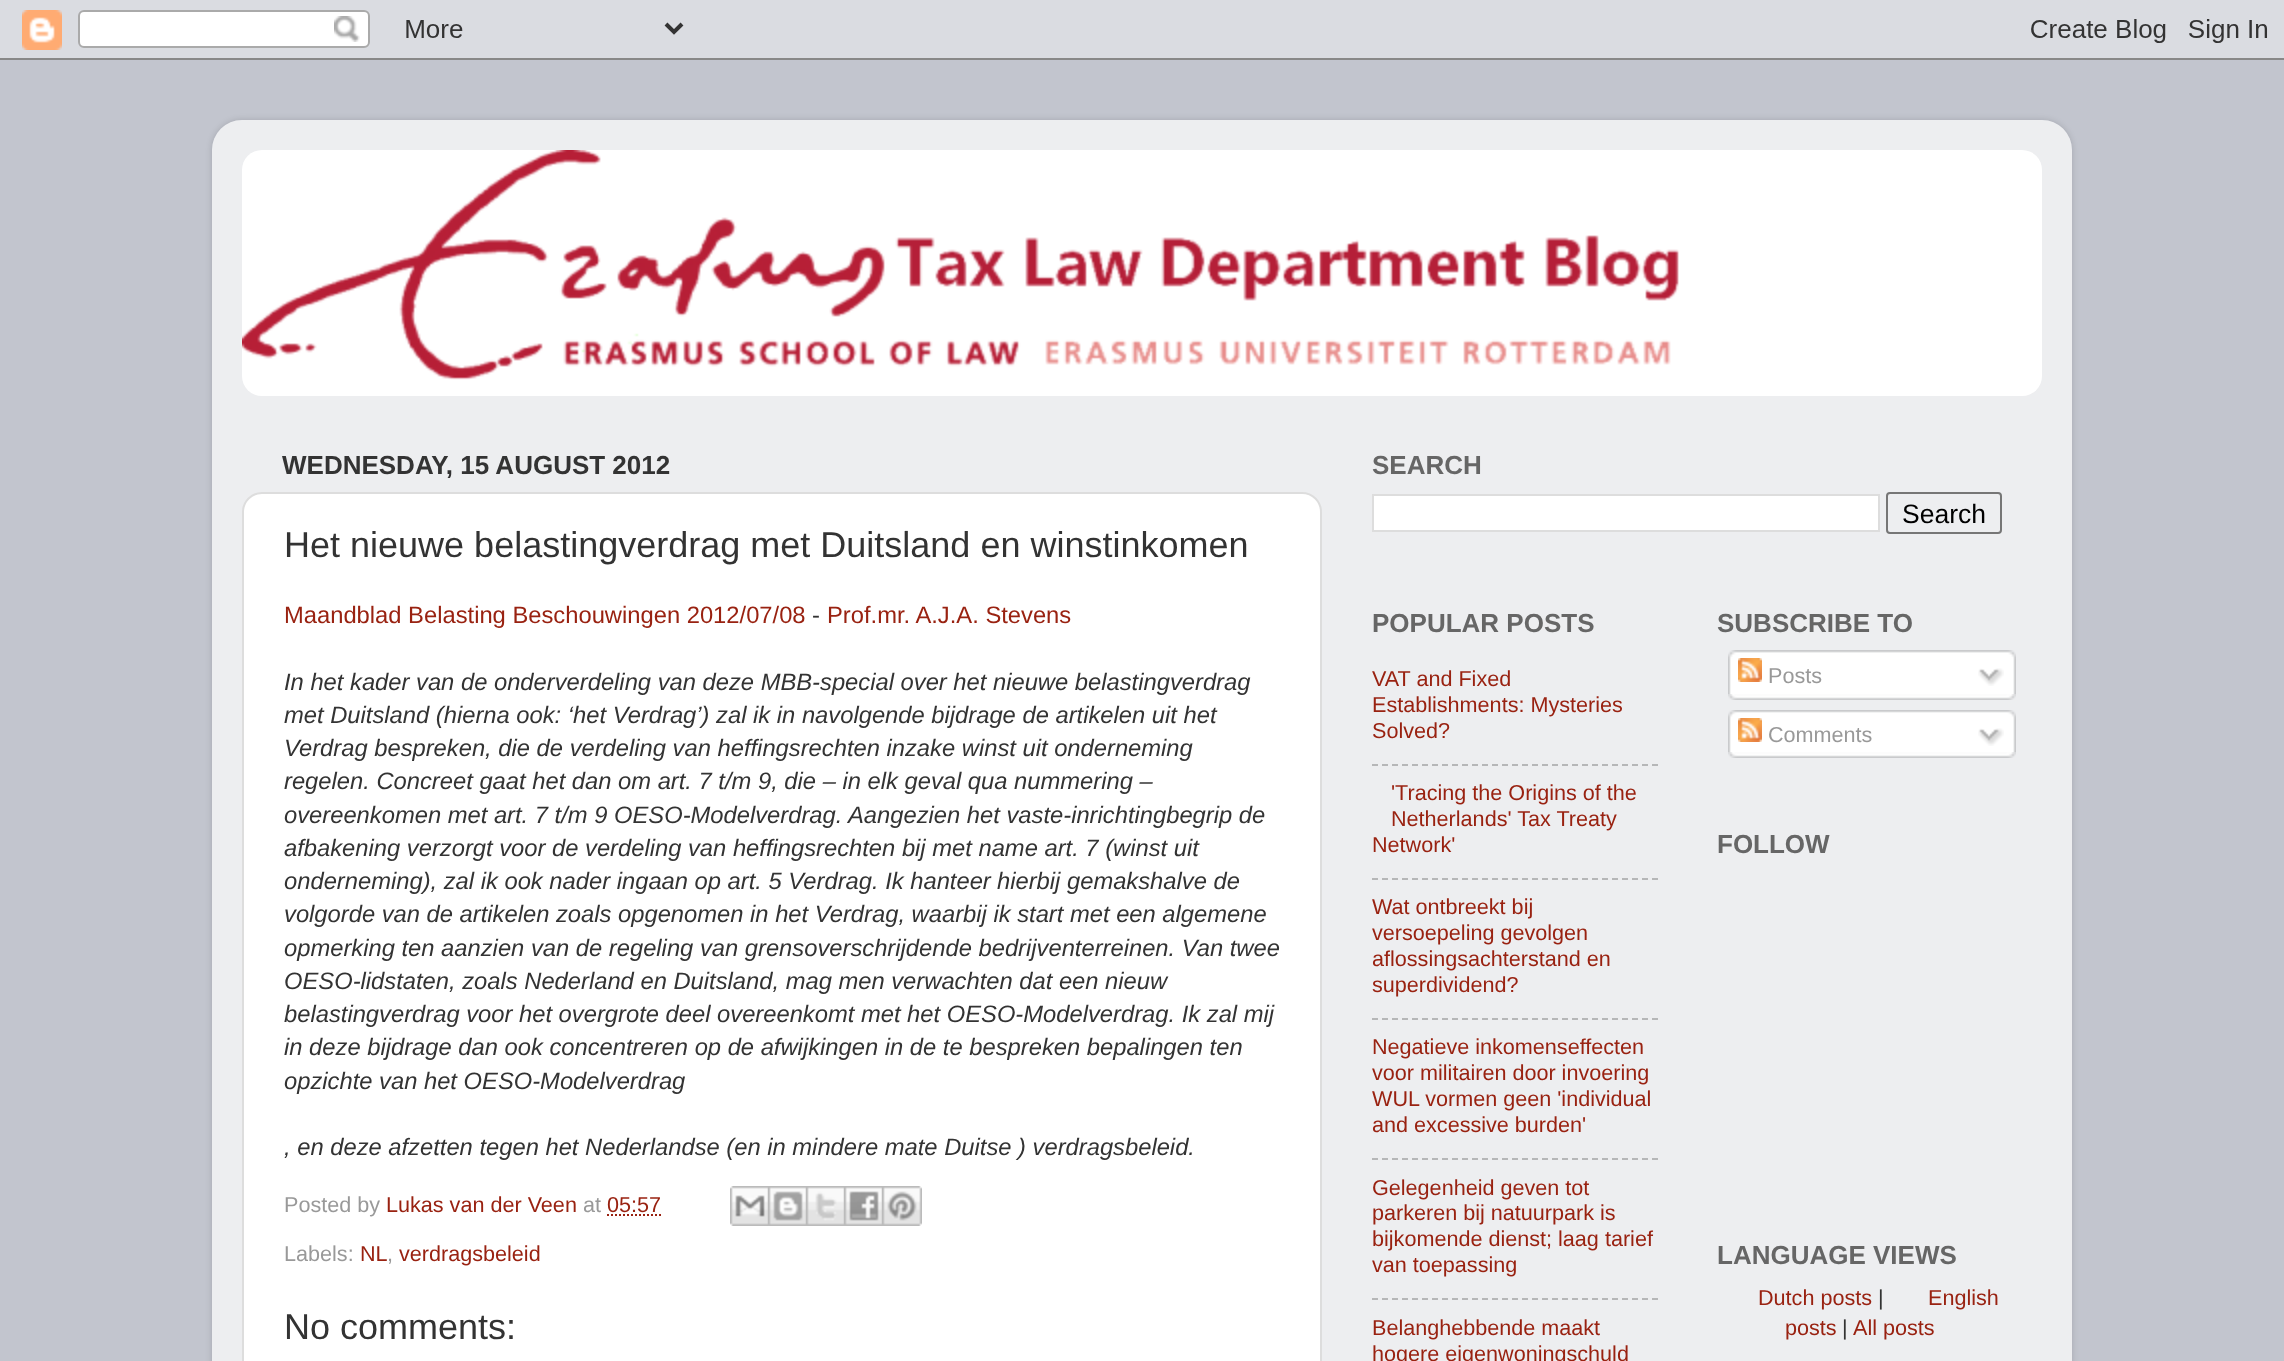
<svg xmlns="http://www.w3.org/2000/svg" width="2284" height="1361">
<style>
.a{font:bold 26px Liberation Sans;fill:#333}
.b{font:36px Liberation Sans;fill:#333}
.c{font:23.75px Liberation Sans;fill:#921}
.d{font:23.75px Liberation Sans;fill:#333}
.e{font:italic 23.75px Liberation Sans;fill:#333}
.f{font:21.6px Liberation Sans;fill:#999}
.g{font:21.6px Liberation Sans;fill:#921}
.h{font:bold 26px Liberation Sans;fill:#666}
.i{font:26.5px Liberation Sans;fill:#000}
.j{font:21.6px Liberation Sans;fill:#333}
</style>
<defs>
<clipPath id="clip1"><path d="M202 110h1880v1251h-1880zm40 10h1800c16.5 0 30 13.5 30 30v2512c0 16.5-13.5 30-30 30h-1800c-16.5 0-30-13.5-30-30v-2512c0-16.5 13.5-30 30-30z" clip-rule="evenodd"/></clipPath>
</defs>
<rect width="100%" height="100%" fill="#c2c5ce"/>
<image href="1.png" x="0" y="0" width="2284" height="60"/>
<g clip-path="url(#clip1)">
<rect fill="#00000026" filter="blur(3px)" x="212" y="120" width="1860" height="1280" rx="30"/>
</g>
<image href="2.png" x="212" y="120" width="1860" height="1241"/>
<rect fill="#fff" x="242" y="150" width="1800" height="246" rx="20"/>
<image href="3.png" x="242" y="150" width="1437" height="230"/>
<rect fill="#fff" stroke="#ddd" stroke-width="2" x="243" y="493" width="1078" height="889" rx="19"/>
<path fill="none" stroke="#921" stroke-width="2" stroke-dasharray="2 2" d="M607 1215h54"/>
<image href="4.png" x="730" y="1186" width="38" height="40"/>
<image href="5.png" x="768" y="1186" width="38" height="40"/>
<image href="6.png" x="806" y="1186" width="38" height="40"/>
<image href="7.png" x="844" y="1186" width="38" height="40"/>
<image href="8.png" x="882" y="1186" width="40" height="40"/>
<path fill="#fff" stroke="#ddd" stroke-width="2" d="M1373 495h506v36H1373z"/>
<rect fill="none" stroke="#767676" stroke-width="2" x="1887" y="493" width="114" height="40" rx="3"/>
<path fill="none" stroke="#b6b7b8" stroke-width="2" stroke-dasharray="6 4" d="M1372 765h286"/>
<path fill="none" stroke="#b6b7b8" stroke-width="2" stroke-dasharray="6 4" d="M1372 879h286"/>
<path fill="none" stroke="#b6b7b8" stroke-width="2" stroke-dasharray="6 4" d="M1372 1019h286"/>
<path fill="none" stroke="#b6b7b8" stroke-width="2" stroke-dasharray="6 4" d="M1372 1159h286"/>
<path fill="none" stroke="#b6b7b8" stroke-width="2" stroke-dasharray="6 4" d="M1372 1299h286"/>
<image href="9.png" x="1728" y="650" width="288" height="44"/>
<image href="10.png" x="1738" y="658" width="24" height="24"/>
<image href="11.png" x="1978" y="668" width="26" height="18"/>
<image href="12.png" x="1728" y="694" width="288" height="6"/>
<image href="13.png" x="1728" y="710" width="288" height="42"/>
<image href="10.png" x="1738" y="718" width="24" height="24"/>
<image href="11.png" x="1978" y="728" width="26" height="18"/>
<image href="12.png" x="1728" y="752" width="288" height="6"/>
<text class="a" x="282" y="474">WEDNESDAY, 15 AUGUST 2012</text>
<text class="b" x="284" y="557">Het nieuwe belastingverdrag met Duitsland en winstinkomen</text>
<text class="c" x="284" y="623">Maandblad Belasting Beschouwingen 2012/07/08</text>
<text class="d" x="812" y="623">-</text>
<text class="c" x="827" y="623">Prof.mr. A.J.A. Stevens</text>
<text class="e" x="284" y="690">In het kader van de onderverdeling van deze MBB-special over het nieuwe belastingverdrag</text>
<text class="e" x="284" y="723">met Duitsland (hierna ook: ‘het Verdrag’) zal ik in navolgende bijdrage de artikelen uit het</text>
<text class="e" x="284" y="756">Verdrag bespreken, die de verdeling van heffingsrechten inzake winst uit onderneming</text>
<text class="e" x="284" y="789">regelen. Concreet gaat het dan om art. 7 t/m 9, die – in elk geval qua nummering –</text>
<text class="e" x="284" y="823">overeenkomen met art. 7 t/m 9 OESO-Modelverdrag.</text>
<text class="e" x="848" y="823">Aangezien het vaste-inrichtingbegrip de</text>
<text class="e" x="284" y="856">afbakening verzorgt voor de verdeling van heffingsrechten bij met name art. 7 (winst uit</text>
<text class="e" x="284" y="889">onderneming), zal ik ook nader ingaan op art. 5 Verdrag. Ik hanteer</text>
<text class="e" x="997" y="889">hierbij gemakshalve de</text>
<text class="e" x="284" y="922">volgorde van de artikelen zoals opgenomen in het Verdrag, waarbij ik start met een algemene</text>
<text class="e" x="284" y="956">opmerking ten aanzien van de regeling van grensoverschrijdende bedrijventerreinen. Van twee</text>
<text class="e" x="284" y="989">OESO-lidstaten, zoals Nederland en Duitsland, mag men verwachten dat een</text>
<text class="e" x="1105" y="989">nieuw</text>
<text class="e" x="284" y="1022">belastingverdrag voor het overgrote deel overeenkomt met het OESO-Modelverdrag. Ik zal mij</text>
<text class="e" x="284" y="1055">in deze bijdrage dan ook concentreren op de afwijkingen in de te bespreken bepalingen ten</text>
<text class="e" x="284" y="1089">opzichte van het OESO-Modelverdrag</text>
<text class="e" x="284" y="1155">, en deze afzetten tegen het Nederlandse (en in mindere mate Duitse ) verdragsbeleid.</text>
<text class="f" x="284" y="1212">Posted by</text>
<text class="g" x="386" y="1212">Lukas van der Veen</text>
<text class="f" x="583" y="1212">at</text>
<text class="g" x="607" y="1212">05:57</text>
<text class="f" x="284" y="1261">Labels:</text>
<text class="g" x="360" y="1261">NL</text>
<text class="f" x="387" y="1261">,</text>
<text class="g" x="399" y="1261">verdragsbeleid</text>
<text class="b" x="284" y="1339">No comments:</text>
<text class="h" x="1372" y="474">SEARCH</text>
<text class="i" x="1902" y="523">Search</text>
<text class="h" x="1372" y="632">POPULAR POSTS</text>
<text class="g" x="1372" y="686">VAT and Fixed</text>
<text class="g" x="1372" y="712">Establishments: Mysteries</text>
<text class="g" x="1372" y="738">Solved?</text>
<text class="g" x="1391" y="800">'Tracing the Origins of the</text>
<text class="g" x="1391" y="826">Netherlands' Tax Treaty</text>
<text class="g" x="1372" y="852">Network'</text>
<text class="g" x="1372" y="914">Wat ontbreekt bij</text>
<text class="g" x="1372" y="940">versoepeling gevolgen</text>
<text class="g" x="1372" y="966">aflossingsachterstand en</text>
<text class="g" x="1372" y="992">superdividend?</text>
<text class="g" x="1372" y="1054">Negatieve inkomenseffecten</text>
<text class="g" x="1372" y="1080">voor militairen door invoering</text>
<text class="g" x="1372" y="1106">WUL vormen geen 'individual</text>
<text class="g" x="1372" y="1132">and excessive burden'</text>
<text class="g" x="1372" y="1195">Gelegenheid geven tot</text>
<text class="g" x="1372" y="1220">parkeren bij natuurpark is</text>
<text class="g" x="1372" y="1246">bijkomende dienst; laag tarief</text>
<text class="g" x="1372" y="1272">van toepassing</text>
<text class="g" x="1372" y="1335">Belanghebbende maakt</text>
<text class="g" x="1372" y="1361">hogere eigenwoningschuld</text>
<text class="h" x="1717" y="632">SUBSCRIBE TO</text>
<text class="f" x="1768" y="683">Posts</text>
<text class="f" x="1768" y="742">Comments</text>
<text class="h" x="1717" y="853">FOLLOW</text>
<text class="h" x="1717" y="1264">LANGUAGE VIEWS</text>
<text class="g" x="1758" y="1305">Dutch posts</text>
<text class="j" x="1878" y="1305">|</text>
<text class="g" x="1928" y="1305">English</text>
<text class="g" x="1785" y="1335">posts</text>
<text class="j" x="1842" y="1335">|</text>
<text class="g" x="1853" y="1335">All posts</text>
</svg>
